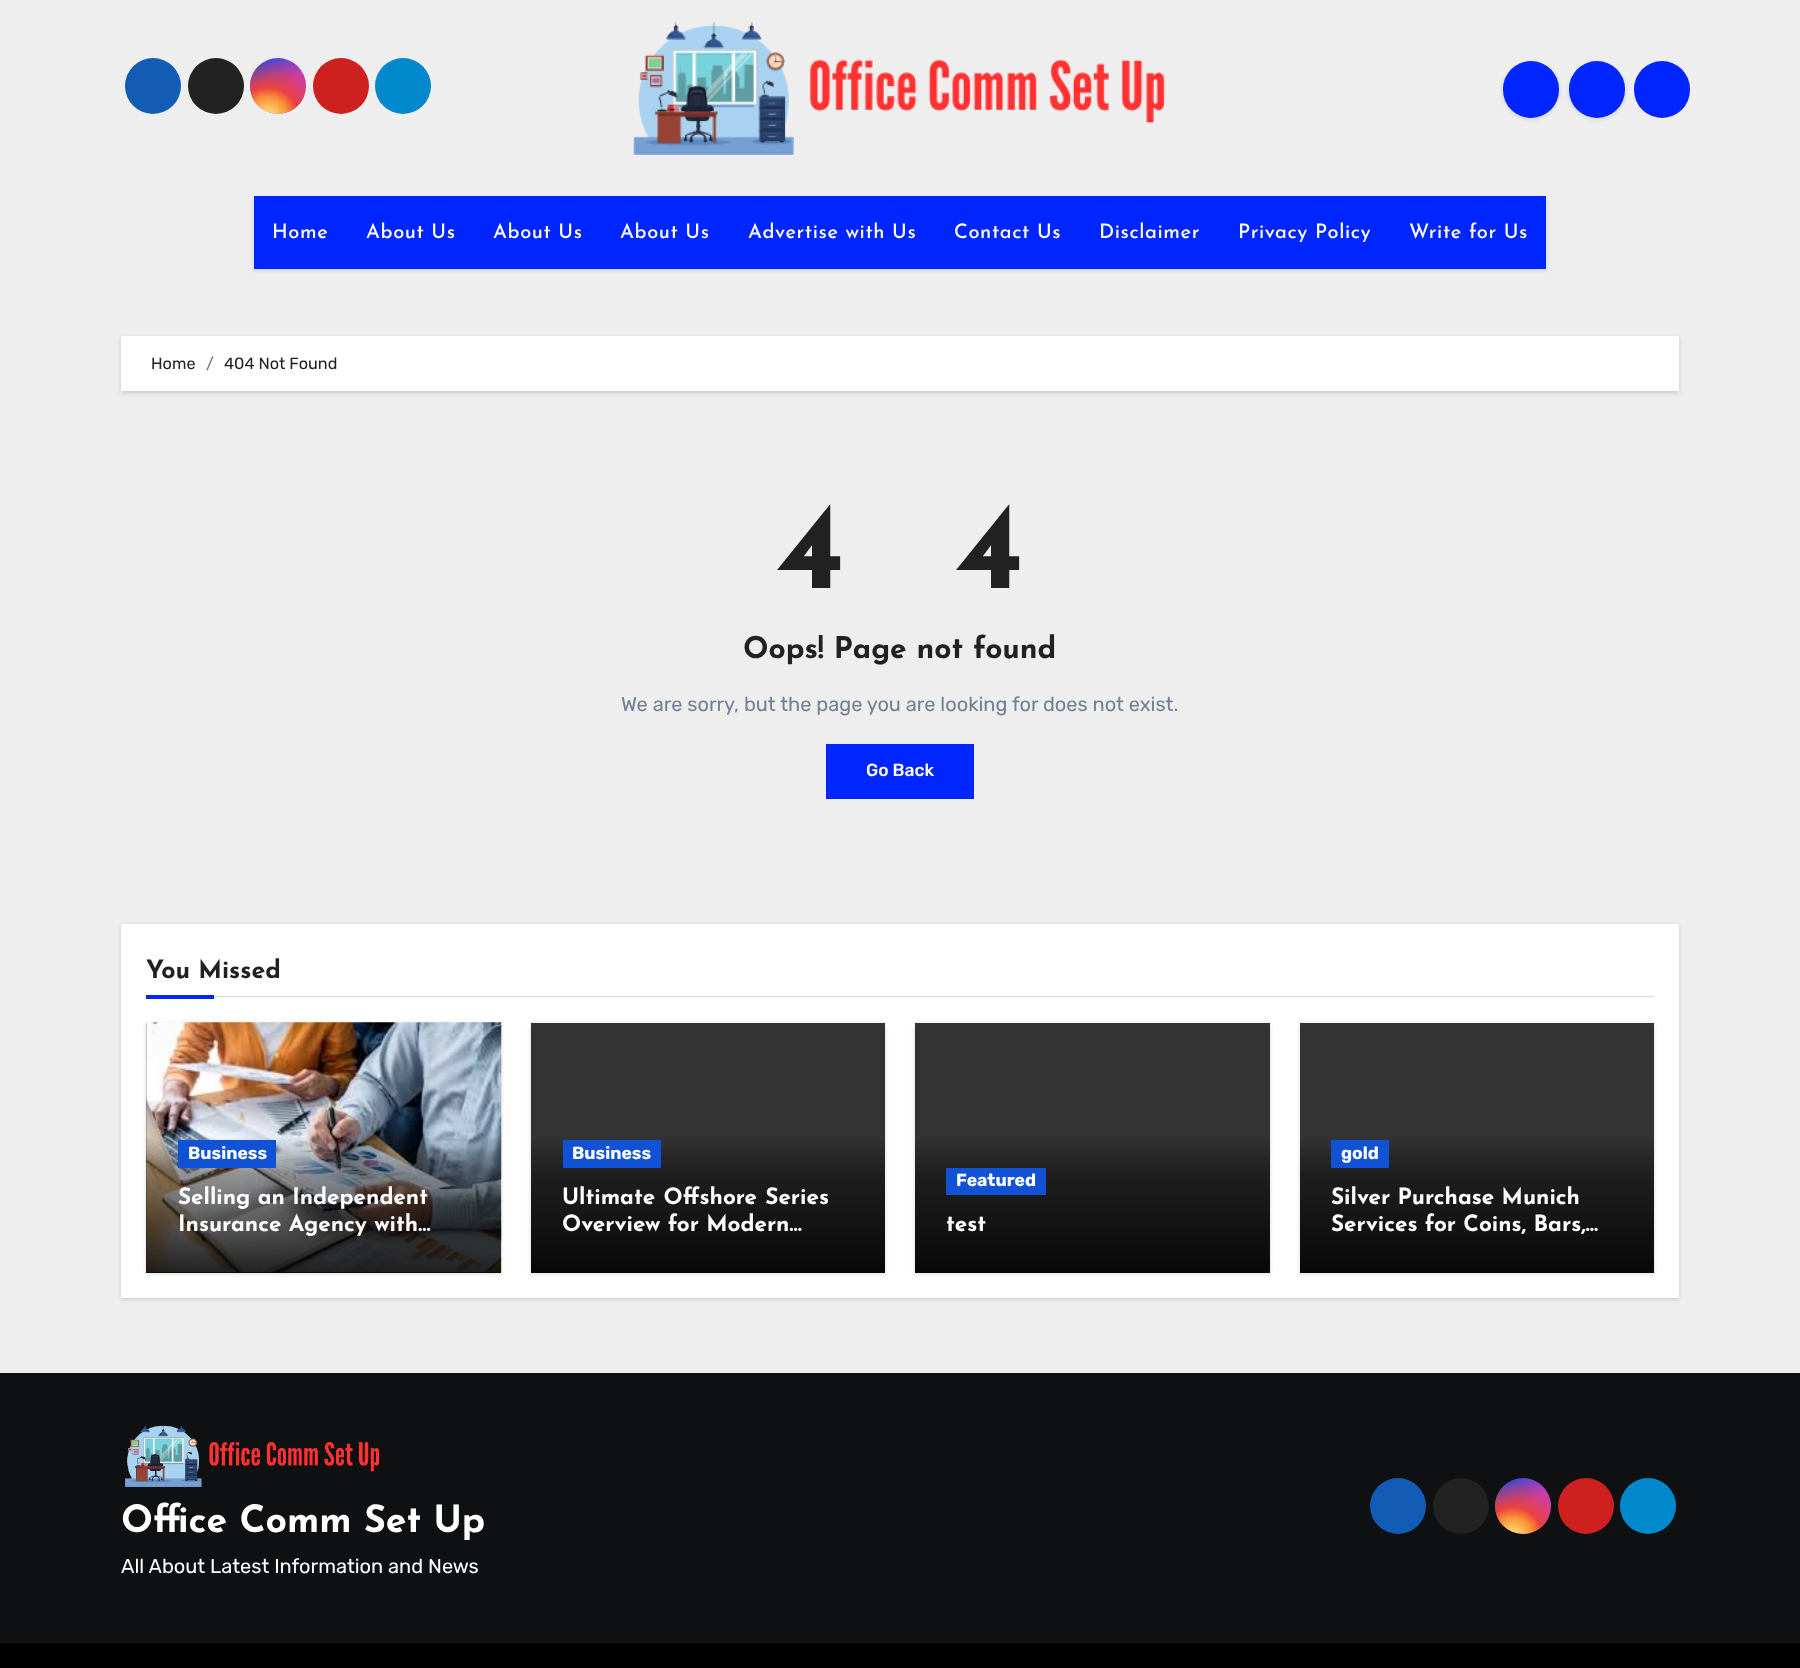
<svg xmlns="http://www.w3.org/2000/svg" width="1800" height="1668">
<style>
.a{font:500 20px Josefin Sans;letter-spacing:0.6px;fill:#fff}
.b{font:300 16.25px Rubik;fill:#212121}
.c{font:300 16.25px Rubik;fill:#6c757d}
.d{font:bold 125px Josefin Sans;fill:#212121}
.e{font:bold 30px Josefin Sans;fill:#212121}
.f{font:300 20px Rubik;fill:#718096}
.g{font:500 17.5px Rubik;fill:#fff}
.h{font:bold 25px Josefin Sans;fill:#212121}
.i{font:bold 17.5px Rubik;fill:#fff}
.j{font:bold 22.5px Josefin Sans;fill:#fff}
.k{font:bold 37.5px Josefin Sans;fill:#fff}
.l{font:300 20px Rubik;fill:#fff}
</style>
<defs>
<linearGradient id="g1" gradientUnits="userSpaceOnUse" x1="250" y1="58" x2="306" y2="114"><stop offset="0.12" stop-color="#234bd7"/><stop offset="0.58" stop-color="#c33cbe"/></linearGradient>
<radialGradient id="g2" gradientUnits="userSpaceOnUse" cx="268" cy="117" r="71"><stop offset="0" stop-color="#ffe17d"/><stop offset="0.1" stop-color="#ffcd69"/><stop offset="0.28" stop-color="#fa9137"/><stop offset="0.42" stop-color="#eb4141"/><stop offset="0.82" stop-color="#eb4141" stop-opacity="0"/></radialGradient>
<linearGradient id="g3" gradientUnits="userSpaceOnUse" x1="324" y1="1023" x2="324" y2="1273"><stop offset="0" stop-color="#000" stop-opacity="0"/><stop offset="0.45" stop-color="#000" stop-opacity="0"/><stop offset="0.6" stop-color="#000" stop-opacity="0.4"/><stop offset="1" stop-color="#000" stop-opacity="0.85"/></linearGradient>
<linearGradient id="g4" gradientUnits="userSpaceOnUse" x1="708" y1="1023" x2="708" y2="1273"><stop offset="0" stop-color="#333"/><stop offset="0.45" stop-color="#333"/><stop offset="0.6" stop-color="#1f1f1f"/><stop offset="1" stop-color="#080808"/></linearGradient>
<linearGradient id="g5" gradientUnits="userSpaceOnUse" x1="1093" y1="1023" x2="1093" y2="1273"><stop offset="0" stop-color="#333"/><stop offset="0.45" stop-color="#333"/><stop offset="0.6" stop-color="#1f1f1f"/><stop offset="1" stop-color="#080808"/></linearGradient>
<linearGradient id="g6" gradientUnits="userSpaceOnUse" x1="1477" y1="1023" x2="1477" y2="1273"><stop offset="0" stop-color="#333"/><stop offset="0.45" stop-color="#333"/><stop offset="0.6" stop-color="#1f1f1f"/><stop offset="1" stop-color="#080808"/></linearGradient>
<linearGradient id="g7" gradientUnits="userSpaceOnUse" x1="1495" y1="1478" x2="1551" y2="1534"><stop offset="0.12" stop-color="#234bd7"/><stop offset="0.58" stop-color="#c33cbe"/></linearGradient>
<radialGradient id="g8" gradientUnits="userSpaceOnUse" cx="1513" cy="1537" r="71"><stop offset="0" stop-color="#ffe17d"/><stop offset="0.1" stop-color="#ffcd69"/><stop offset="0.28" stop-color="#fa9137"/><stop offset="0.42" stop-color="#eb4141"/><stop offset="0.82" stop-color="#eb4141" stop-opacity="0"/></radialGradient>
</defs>
<rect width="100%" height="100%" fill="#eee"/>
<circle fill="#135cb6" cx="153" cy="86" r="28"/>
<circle fill="#222" cx="216" cy="86" r="28"/>
<circle fill="url(#g1)" cx="278" cy="86" r="28"/>
<circle fill="url(#g2)" cx="278" cy="86" r="28"/>
<circle fill="#cd201f" cx="341" cy="86" r="28"/>
<circle fill="#08c" cx="403" cy="86" r="28"/>
<image href="1.png" x="633" y="22" width="533" height="133"/>
<rect fill="#00000026" filter="blur(2px)" x="1503" y="63" width="56" height="56" rx="28"/>
<rect fill="#0025ff" x="1503" y="61" width="56" height="57" rx="28"/>
<rect fill="#00000026" filter="blur(2px)" x="1569" y="63" width="56" height="56" rx="28"/>
<rect fill="#0025ff" x="1569" y="61" width="56" height="57" rx="28"/>
<rect fill="#0025ff" x="1634" y="61" width="56" height="57" rx="28"/>
<path fill="#00000026" filter="blur(2px)" d="M254 198h1292v72H254z"/>
<path fill="#0025ff" d="M254 196h1292v73H254z"/>
<path fill="#00000026" filter="blur(2px)" d="M121 338h1558v55H121z"/>
<path fill="#fff" d="M121 336h1558v55H121z"/>
<path fill="#0025ff" d="M826 744h148v55H826z"/>
<path fill="#00000026" filter="blur(2px)" d="M121 925h1558v374H121z"/>
<path fill="#fff" d="M121 924h1558v374H121z"/>
<path fill="#d7d7d7" d="M214 996h1440v1H214z"/>
<path fill="#0025ff" d="M146 995h68v4H146z"/>
<path fill="#00000026" filter="blur(2px)" d="M146 1024h355v250H146z"/>
<path fill="#333" d="M146 1023h355v250H146z"/>
<image href="2.png" x="146" y="1022" width="356" height="251"/>
<path fill="url(#g3)" d="M146 1138h355v135H146z"/>
<path fill="#1151d3" d="M178 1140h98v28H178z"/>
<path fill="#00000026" filter="blur(2px)" d="M531 1024h354v250H531z"/>
<path fill="url(#g4)" d="M531 1023h354v250H531z"/>
<path fill="#1151d3" d="M563 1140h98v28H563z"/>
<path fill="#00000026" filter="blur(2px)" d="M915 1024h355v250H915z"/>
<path fill="url(#g5)" d="M915 1023h355v250H915z"/>
<path fill="#1151d3" d="M946 1168h100v27H946z"/>
<path fill="#00000026" filter="blur(2px)" d="M1300 1024h354v250H1300z"/>
<path fill="url(#g6)" d="M1300 1023h354v250H1300z"/>
<path fill="#1151d3" d="M1331 1140h58v28H1331z"/>
<path fill="#0f1012" d="M0 1373h1800v270H0z"/>
<image href="3.png" x="125" y="1424" width="255" height="63"/>
<circle fill="#135cb6" cx="1398" cy="1506" r="28"/>
<circle fill="#222" cx="1461" cy="1506" r="28"/>
<circle fill="url(#g7)" cx="1523" cy="1506" r="28"/>
<circle fill="url(#g8)" cx="1523" cy="1506" r="28"/>
<circle fill="#cd201f" cx="1586" cy="1506" r="28"/>
<circle fill="#08c" cx="1648" cy="1506" r="28"/>
<path fill="#000" d="M0 1643h1800v25H0z"/>
<text class="a" x="272" y="238">Home</text>
<text class="a" x="366" y="238">About Us</text>
<text class="a" x="493" y="238">About Us</text>
<text class="a" x="620" y="238">About Us</text>
<text class="a" x="748" y="238">Advertise with Us</text>
<text class="a" x="954" y="238">Contact Us</text>
<text class="a" x="1099" y="238">Disclaimer</text>
<text class="a" x="1238" y="238">Privacy Policy</text>
<text class="a" x="1409" y="238">Write for Us</text>
<text class="b" x="151" y="369">Home</text>
<text class="c" x="206" y="369">/</text>
<text class="b" x="224" y="369">404 Not Found</text>
<text class="d" x="776" y="588">4</text>
<text class="d" x="955" y="588">4</text>
<text class="e" x="743" y="658">Oops! Page not found</text>
<text class="f" x="621" y="711">We are sorry, but the page you are looking for does not exist.</text>
<text class="g" x="866" y="776">Go Back</text>
<text class="h" x="146" y="978">You Missed</text>
<text class="i" x="188" y="1159">Business</text>
<text class="j" x="178" y="1204">Selling an Independent</text>
<text class="j" x="178" y="1231">Insurance Agency with…</text>
<text class="i" x="572" y="1159">Business</text>
<text class="j" x="562" y="1204" word-spacing="1">Ultimate Offshore Series</text>
<text class="j" x="562" y="1231">Overview for Modern…</text>
<text class="i" x="956" y="1186">Featured</text>
<text class="j" x="946" y="1231">test</text>
<text class="i" x="1341" y="1159">gold</text>
<text class="j" x="1331" y="1204">Silver Purchase Munich</text>
<text class="j" x="1331" y="1231">Services for Coins, Bars,…</text>
<text class="k" x="121" y="1532">Office Comm Set Up</text>
<text class="l" x="121" y="1573">All About Latest Information and News</text>
</svg>
